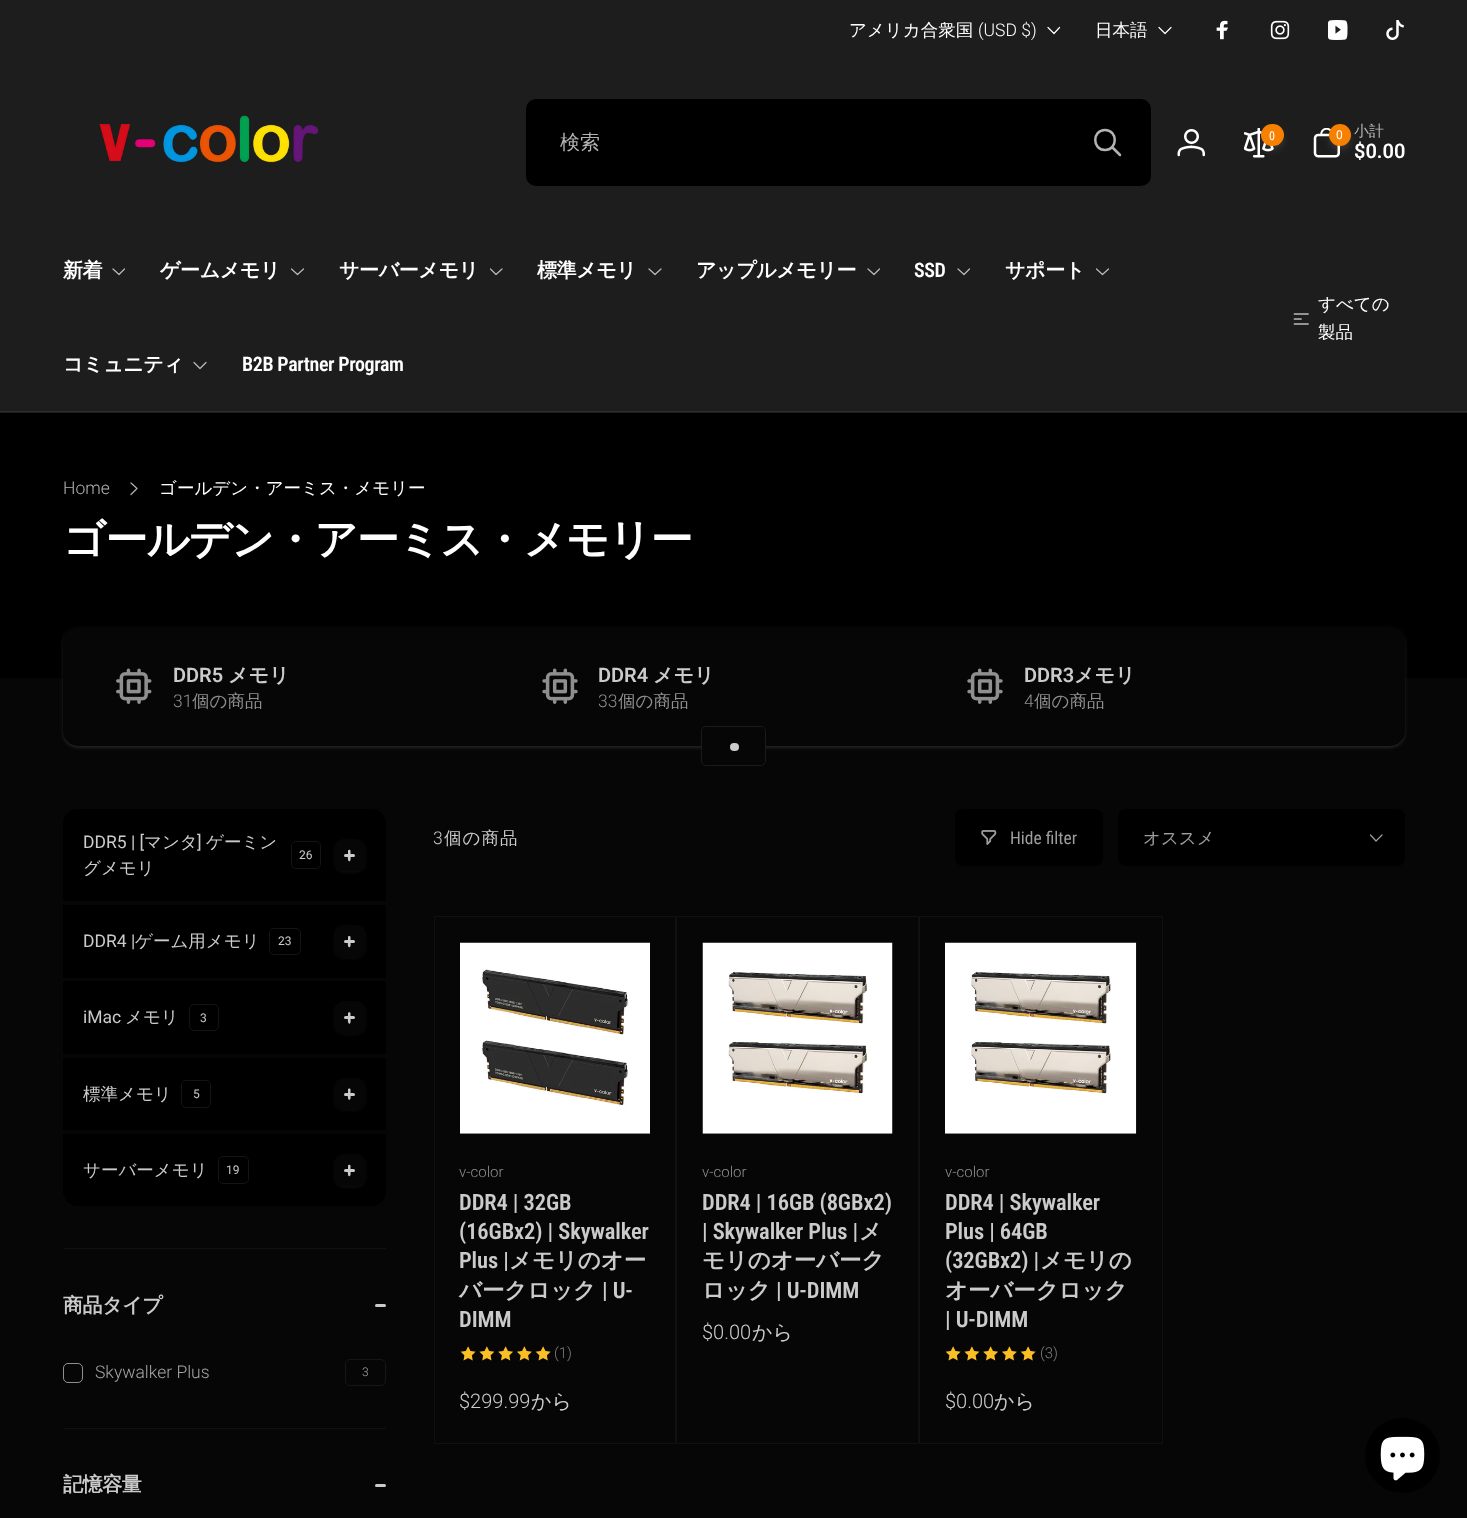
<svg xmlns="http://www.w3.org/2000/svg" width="1467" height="1518">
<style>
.a{font:500 17.5px WenQuanYi Zen Hei;fill:#fff}
.b{font:300 17.5px Roboto;fill:#fff}
.c{font:500 20px WenQuanYi Zen Hei;fill:#b3b3b3}
.d{font:12px Roboto Condensed;fill:#fff}
.e{font:12px Roboto;fill:#fff}
.f{font:500 15px WenQuanYi Zen Hei;fill:#bbb}
.g{font:600 20px Roboto;fill:#fff}
.h{font:bold 20px WenQuanYi Zen Hei;letter-spacing:-0.4px;fill:#fff}
.i{font:600 20px Roboto Condensed;letter-spacing:-0.4px;fill:#fff}
.j{font:300 17.5px Roboto;fill:#b3b3b3}
.k{font:bold 42.5px WenQuanYi Zen Hei;letter-spacing:-1.25px;fill:#fff}
.l{font:600 20px Roboto;fill:#cccbcb}
.m{font:bold 20px WenQuanYi Zen Hei;fill:#cccbcb}
.n{font:300 17.5px Roboto;fill:#919090}
.o{font:500 17.5px WenQuanYi Zen Hei;fill:#919090}
.p{font:17.5px Roboto;fill:#cccbcb}
.q{font:500 17.5px WenQuanYi Zen Hei;fill:#cccbcb}
.r{font:12px Roboto;fill:#cccbcb}
.s{font:bold 20px WenQuanYi Zen Hei;letter-spacing:-0.4px;fill:#cccbcb}
.t{font:300 17.5px Roboto;fill:#a4a4a4}
.u{font:300 12px Roboto;fill:#a4a4a4}
.v{font:300 17.5px Roboto;letter-spacing:1px;fill:#cccbcb}
.w{font:500 17.5px WenQuanYi Zen Hei;letter-spacing:1px;fill:#cccbcb}
.x{font:17.5px Roboto Condensed;fill:#9f9e9e}
.y{font:500 17.5px WenQuanYi Zen Hei;fill:#9f9e9e}
.z{font:300 15px Roboto;fill:#919090}
.a1{font:600 22.5px Roboto Condensed;letter-spacing:-0.1px;fill:#cccbcb}
.b1{font:bold 22.5px WenQuanYi Zen Hei;letter-spacing:-0.1px;fill:#cccbcb}
.c1{font:300 15px Roboto;fill:#7d7c7c}
.d1{font:300 20px Roboto;fill:#cccbcb}
.e1{font:500 20px WenQuanYi Zen Hei;fill:#cccbcb}
</style>
<defs>
<clipPath id="clip1"><path d="M113 665h1242v44H113z"/></clipPath>
</defs>
<rect width="100%" height="100%" fill="#060606"/>
<path fill="#1d1d1d" d="M0 0h1467v413H0z"/>
<path fill="none" stroke="#fff" stroke-width="1.2" stroke-linecap="round" stroke-linejoin="round" d="M1059.5 27.5l-5.5 6l-6-6"/>
<path fill="none" stroke="#fff" stroke-width="1.2" stroke-linecap="round" stroke-linejoin="round" d="M1171 27.5l-6 6l-6-6"/>
<image href="1.png" x="1216" y="20" width="12" height="20"/>
<image href="2.png" x="1270" y="20" width="20" height="20"/>
<image href="3.png" x="1328" y="20" width="20" height="20"/>
<image href="4.png" x="1386" y="20" width="18" height="20"/>
<path fill="#2f2f2f" d="M0 411h1467v1H0z"/>
<image href="5.png" x="99" y="115" width="219" height="48"/>
<rect fill="#000" x="526" y="99" width="625" height="87" rx="10"/>
<path fill="none" stroke="#b3b3b3" stroke-width="2.5" stroke-linecap="round" stroke-linejoin="round" d="M1120 155l-8-8m-7 3c13 0 13-20 0-20c-13 0-13 20 0 20z"/>
<image href="6.png" x="1177" y="129" width="28" height="28"/>
<image href="7.png" x="1244" y="128" width="30" height="30"/>
<rect fill="#ffffff0f" filter="blur(2.5px)" x="1263" y="128" width="20" height="20" rx="10"/>
<rect fill="#ffffff1a" filter="blur(4px)" x="1263" y="130" width="20" height="20" rx="10"/>
<rect fill="#f78000" x="1261" y="124" width="23" height="22" rx="11"/>
<image href="8.png" x="1313" y="128" width="27" height="30"/>
<rect fill="#ffffff0f" filter="blur(2.5px)" x="1330" y="128" width="20" height="20" rx="10"/>
<rect fill="#ffffff1a" filter="blur(4px)" x="1330" y="130" width="20" height="20" rx="10"/>
<circle fill="#f78000" cx="1340" cy="135" r="11"/>
<path fill="none" stroke="#bbb" stroke-width="1.2" stroke-linecap="round" stroke-linejoin="round" d="M124.5 269l-5.5 5.5l-6-5.5"/>
<path fill="none" stroke="#bbb" stroke-width="1.2" stroke-linecap="round" stroke-linejoin="round" d="M303.5 269l-6 5.5l-6-5.5"/>
<path fill="none" stroke="#bbb" stroke-width="1.2" stroke-linecap="round" stroke-linejoin="round" d="M502 269l-6 5.5l-5.5-5.5"/>
<path fill="none" stroke="#bbb" stroke-width="1.2" stroke-linecap="round" stroke-linejoin="round" d="M661 269l-6 5.5l-6-5.5"/>
<path fill="none" stroke="#bbb" stroke-width="1.2" stroke-linecap="round" stroke-linejoin="round" d="M879.5 269l-5.5 5.5l-6-5.5"/>
<path fill="none" stroke="#bbb" stroke-width="1.2" stroke-linecap="round" stroke-linejoin="round" d="M969.5 269l-5.5 5.5l-6-5.5"/>
<path fill="none" stroke="#bbb" stroke-width="1.2" stroke-linecap="round" stroke-linejoin="round" d="M1108.5 269l-6 5.5l-6-5.5"/>
<path fill="none" stroke="#bbb" stroke-width="1.2" stroke-linecap="round" stroke-linejoin="round" d="M206 362.5l-6 6l-6-6"/>
<path fill="none" stroke="#bbb" stroke-width="1.7" stroke-linecap="round" stroke-linejoin="round" d="M1294.5 314h13.5m-13.5 5h6.5m-6.5 5h13.5"/>
<path fill="#000" d="M0 413h1467v265H0z"/>
<path fill="none" stroke="#b3b3b3" stroke-width="1.2" stroke-linecap="round" stroke-linejoin="round" d="M131 483l6 5.5l-6 6"/>
<rect fill="#cccbcb0f" filter="blur(1px)" x="63" y="629" width="1342" height="119" rx="15"/>
<rect fill="#cccbcb1a" filter="blur(2px)" x="63" y="629" width="1342" height="119" rx="15"/>
<rect fill="#060606" x="63" y="628" width="1342" height="118" rx="15"/>
<image href="9.png" x="116" y="668" width="36" height="36"/>
<image href="10.png" x="542" y="668" width="36" height="36"/>
<image href="10.png" x="967" y="668" width="36" height="36"/>
<rect fill="#060606" stroke="#1a1a1a" x="701.5" y="726.5" width="64" height="39" rx="4.5"/>
<rect fill="#cccbcb" x="730" y="743" width="9" height="8" rx="4"/>
<path fill="#000" d="M78 809h293c8.5 0 15 6.5 15 15v77h-323v-77c0-8.5 6.5-15 15-15z"/>
<rect fill="none" stroke="#141414" x="291.5" y="841.5" width="29" height="27" rx="4.5"/>
<rect fill="#cccbcb0d" filter="blur(1px)" x="334" y="840" width="32" height="33" rx="10"/>
<rect fill="#060606" x="334" y="839" width="32" height="32" rx="10"/>
<path fill="#cccbcb" d="M350.5 851v4.5c0 1 .5 4.5-.5 5.5c-3 1.5-2-6.5-2-7v-3.5c.5-1 2.5-1 2.5 .5z"/>
<rect fill="#cccbcb" x="344" y="854" width="11" height="3" rx="1.5"/>
<path fill="#000" d="M63 905h323v73H63z"/>
<rect fill="none" stroke="#141414" x="269.5" y="928.5" width="31" height="26" rx="4.5"/>
<rect fill="#cccbcb0d" filter="blur(1px)" x="334" y="926" width="32" height="33" rx="10"/>
<rect fill="#060606" x="334" y="925" width="32" height="33" rx="10"/>
<path fill="#cccbcb" d="M350.5 937v4.5c0 1.5 .5 4.5-.5 5.5c-3 2-2-6.5-2-7v-3.5c.5-1 2.5-.5 2.5 .5z"/>
<rect fill="#cccbcb" x="344" y="940" width="11" height="3" rx="1.5"/>
<path fill="#000" d="M63 981h323v73H63z"/>
<rect fill="none" stroke="#141414" x="189.5" y="1004.5" width="29" height="26" rx="4.5"/>
<rect fill="#cccbcb0d" filter="blur(1px)" x="334" y="1003" width="32" height="32" rx="10"/>
<rect fill="#060606" x="334" y="1001" width="32" height="33" rx="10"/>
<path fill="#cccbcb" d="M350.5 1013.5v4.5c0 1 .5 4.5-.5 5.5c-3 1.5-2-6.5-2-7v-3.5c.5-1 2.5-1 2.5 .5z"/>
<rect fill="#cccbcb" x="344" y="1016" width="11" height="3" rx="1.5"/>
<path fill="#000" d="M63 1058h323v72H63z"/>
<rect fill="none" stroke="#141414" x="181.5" y="1080.5" width="29" height="27" rx="4.5"/>
<rect fill="#cccbcb0d" filter="blur(1px)" x="334" y="1079" width="32" height="32" rx="10"/>
<rect fill="#060606" x="334" y="1078" width="32" height="32" rx="10"/>
<path fill="#cccbcb" d="M350.5 1089.5v4.5c0 1.5 .5 4.5-.5 5.5c-3 2-2-6.5-2-7v-3.5c.5-1 2.5-.5 2.5 .5z"/>
<rect fill="#cccbcb" x="344" y="1093" width="11" height="3" rx="1.5"/>
<path fill="#000" d="M63 1134h323v57c0 8.5-6.5 15-15 15h-293c-8.5 0-15-6.5-15-15z"/>
<rect fill="none" stroke="#141414" x="218.5" y="1156.5" width="30" height="27" rx="4.5"/>
<rect fill="#cccbcb0d" filter="blur(1px)" x="334" y="1155" width="32" height="33" rx="10"/>
<rect fill="#060606" x="334" y="1154" width="32" height="32" rx="10"/>
<path fill="#cccbcb" d="M350.5 1166v4.5c0 1 .5 4.5-.5 5.5c-3 1.5-2-6.5-2-7v-3.5c.5-1 2.5-1 2.5 .5z"/>
<rect fill="#cccbcb" x="344" y="1169" width="11" height="3" rx="1.5"/>
<path fill="#101010" d="M63 1248h323v1H63z"/>
<rect fill="#cccbcb" x="375" y="1304" width="11" height="3" rx="1.5"/>
<rect fill="none" stroke="#767676" x="64.5" y="1364.5" width="16" height="16" rx="2"/>
<rect fill="#060606" x="63" y="1363" width="20" height="20" rx="5"/>
<rect fill="none" stroke="#cccbcbb3" x="63.5" y="1363.5" width="19" height="19" rx="4.5"/>
<rect fill="none" stroke="#161616" x="345.5" y="1359.5" width="40" height="26" rx="4.5"/>
<path fill="#101010" d="M63 1428h323v1H63z"/>
<rect fill="#cccbcb" x="375" y="1484" width="11" height="3" rx="1.5"/>
<rect fill="#000" x="955" y="809" width="148" height="57" rx="8"/>
<image href="11.png" x="981" y="830" width="16" height="15"/>
<rect fill="#000" x="1118" y="809" width="287" height="57" rx="8"/>
<path fill="none" stroke="#9f9e9e" stroke-width="1.2" stroke-linecap="round" stroke-linejoin="round" d="M1382 835l-6 6l-5.5-6"/>
<path fill="none" stroke="#101010" d="M434.5 916.5h241v527H434.5z"/>
<path fill="#000" d="M460 1133h190v1H460z"/>
<image href="12.png" x="460" y="942" width="190" height="192"/>
<image href="13.png" x="460" y="1346" width="16" height="15"/>
<image href="14.png" x="479" y="1346" width="16" height="15"/>
<image href="15.png" x="498" y="1346" width="15" height="15"/>
<image href="16.png" x="517" y="1346" width="15" height="15"/>
<image href="13.png" x="535" y="1346" width="16" height="15"/>
<path fill="none" stroke="#101010" d="M676.5 916.5h242v527H676.5z"/>
<path fill="#000" d="M703 943h190v191H703z"/>
<image href="17.png" x="702" y="942" width="191" height="192"/>
<path fill="none" stroke="#101010" d="M919.5 916.5h243v527H919.5z"/>
<path fill="#000" d="M945 1133h191v1H945z"/>
<image href="18.png" x="945" y="942" width="192" height="192"/>
<image href="13.png" x="945" y="1346" width="16" height="15"/>
<image href="14.png" x="964" y="1346" width="16" height="15"/>
<image href="15.png" x="983" y="1346" width="15" height="15"/>
<image href="16.png" x="1002" y="1346" width="15" height="15"/>
<image href="13.png" x="1020" y="1346" width="16" height="15"/>
<circle fill="#000" cx="1402.5" cy="1455.5" r="37.5"/>
<image href="19.png" x="1380" y="1436" width="45" height="45"/>
<text class="a" x="849" y="36">アメリカ合衆国</text>
<text class="b" x="978" y="36">(USD $)</text>
<text class="a" x="1095" y="36">日本語</text>
<text class="c" x="560" y="149">検索</text>
<text class="d" x="1269" y="140">0</text>
<text class="e" x="1336" y="139">0</text>
<text class="f" x="1354" y="136">小計</text>
<text class="g" x="1354" y="158">$0.00</text>
<text class="h" x="63" y="277">新着</text>
<text class="h" x="160" y="277">ゲームメモリ</text>
<text class="h" x="339" y="277">サーバーメモリ</text>
<text class="h" x="537" y="277">標準メモリ</text>
<text class="h" x="696" y="277">アップルメモリー</text>
<text class="i" x="914" y="277">SSD</text>
<text class="h" x="1005" y="277">サポート</text>
<text class="h" x="63" y="371">コミュニティ</text>
<text class="i" x="242" y="371">B2B Partner Program</text>
<text class="a" x="1318" y="310">すべての</text>
<text class="a" x="1318" y="338">製品</text>
<text class="j" x="63" y="494">Home</text>
<text class="a" x="159" y="494">ゴールデン・アーミス・メモリー</text>
<text class="k" x="63" y="554">ゴールデン・アーミス・メモリー</text>
<text class="l" x="173" y="682">DDR5</text>
<text class="m" x="228" y="682">メモリ</text>
<text class="n" x="173" y="707">31</text>
<g clip-path="url(#clip1)">
<text class="o" x="192" y="707">個の商品</text>
</g>
<text class="l" x="598" y="682">DDR4</text>
<text class="m" x="653" y="682">メモリ</text>
<text class="n" x="598" y="707">33</text>
<g clip-path="url(#clip1)">
<text class="o" x="618" y="707">個の商品</text>
</g>
<text class="l" x="1024" y="682">DDR3</text>
<text class="m" x="1074" y="682">メモリ</text>
<text class="n" x="1024" y="707">4</text>
<g clip-path="url(#clip1)">
<text class="o" x="1034" y="707">個の商品</text>
</g>
<text class="p" x="83" y="848">DDR5 | [</text>
<text class="q" x="144" y="848">マンタ</text>
<text class="p" x="197" y="848">]</text>
<text class="q" x="206" y="848">ゲーミン</text>
<text class="r" x="299" y="859">26</text>
<text class="q" x="83" y="874">グメモリ</text>
<text class="p" x="83" y="947">DDR4 |</text>
<text class="q" x="135" y="947">ゲーム用メモリ</text>
<text class="r" x="278" y="945">23</text>
<text class="p" x="83" y="1023">iMac</text>
<text class="q" x="125" y="1023">メモリ</text>
<text class="r" x="200" y="1022">3</text>
<text class="q" x="83" y="1100">標準メモリ</text>
<text class="r" x="193" y="1098">5</text>
<text class="q" x="83" y="1176">サーバーメモリ</text>
<text class="r" x="226" y="1174">19</text>
<text class="s" x="63" y="1312">商品タイプ</text>
<text class="t" x="95" y="1378">Skywalker Plus</text>
<text class="u" x="362" y="1376">3</text>
<text class="s" x="63" y="1491">記憶容量</text>
<text class="v" x="433" y="844">3</text>
<text class="w" x="444" y="844">個の商品</text>
<text class="x" x="1010" y="844">Hide filter</text>
<text class="y" x="1143" y="844">オススメ</text>
<text class="z" x="459" y="1177">v-color</text>
<text class="a1" x="459" y="1210">DDR4 | 32GB</text>
<text class="a1" x="459" y="1239">(16GBx2) | Skywalker</text>
<text class="a1" x="459" y="1268">Plus |</text>
<text class="b1" x="509" y="1268">メモリのオー</text>
<text class="b1" x="459" y="1298">バークロック</text>
<text class="a1" x="602" y="1298">| U-</text>
<text class="a1" x="459" y="1327">DIMM</text>
<text class="c1" x="554" y="1358">(1)</text>
<text class="d1" x="459" y="1408">$299.99</text>
<text class="e1" x="531" y="1408">から</text>
<text class="z" x="702" y="1177">v-color</text>
<text class="a1" x="702" y="1210">DDR4 | 16GB (8GBx2)</text>
<text class="a1" x="702" y="1239">| Skywalker Plus |</text>
<text class="b1" x="859" y="1239">メ</text>
<text class="b1" x="702" y="1268">モリのオーバーク</text>
<text class="b1" x="702" y="1298">ロック</text>
<text class="a1" x="776" y="1298">| U-DIMM</text>
<text class="d1" x="702" y="1339">$0.00</text>
<text class="e1" x="752" y="1339">から</text>
<text class="z" x="945" y="1177">v-color</text>
<text class="a1" x="945" y="1210">DDR4 | Skywalker</text>
<text class="a1" x="945" y="1239">Plus | 64GB</text>
<text class="a1" x="945" y="1268">(32GBx2) |</text>
<text class="b1" x="1040" y="1268">メモリの</text>
<text class="b1" x="945" y="1298">オーバークロック</text>
<text class="a1" x="945" y="1327">| U-DIMM</text>
<text class="c1" x="1040" y="1358">(3)</text>
<text class="d1" x="945" y="1408">$0.00</text>
<text class="e1" x="994" y="1408">から</text>
</svg>
